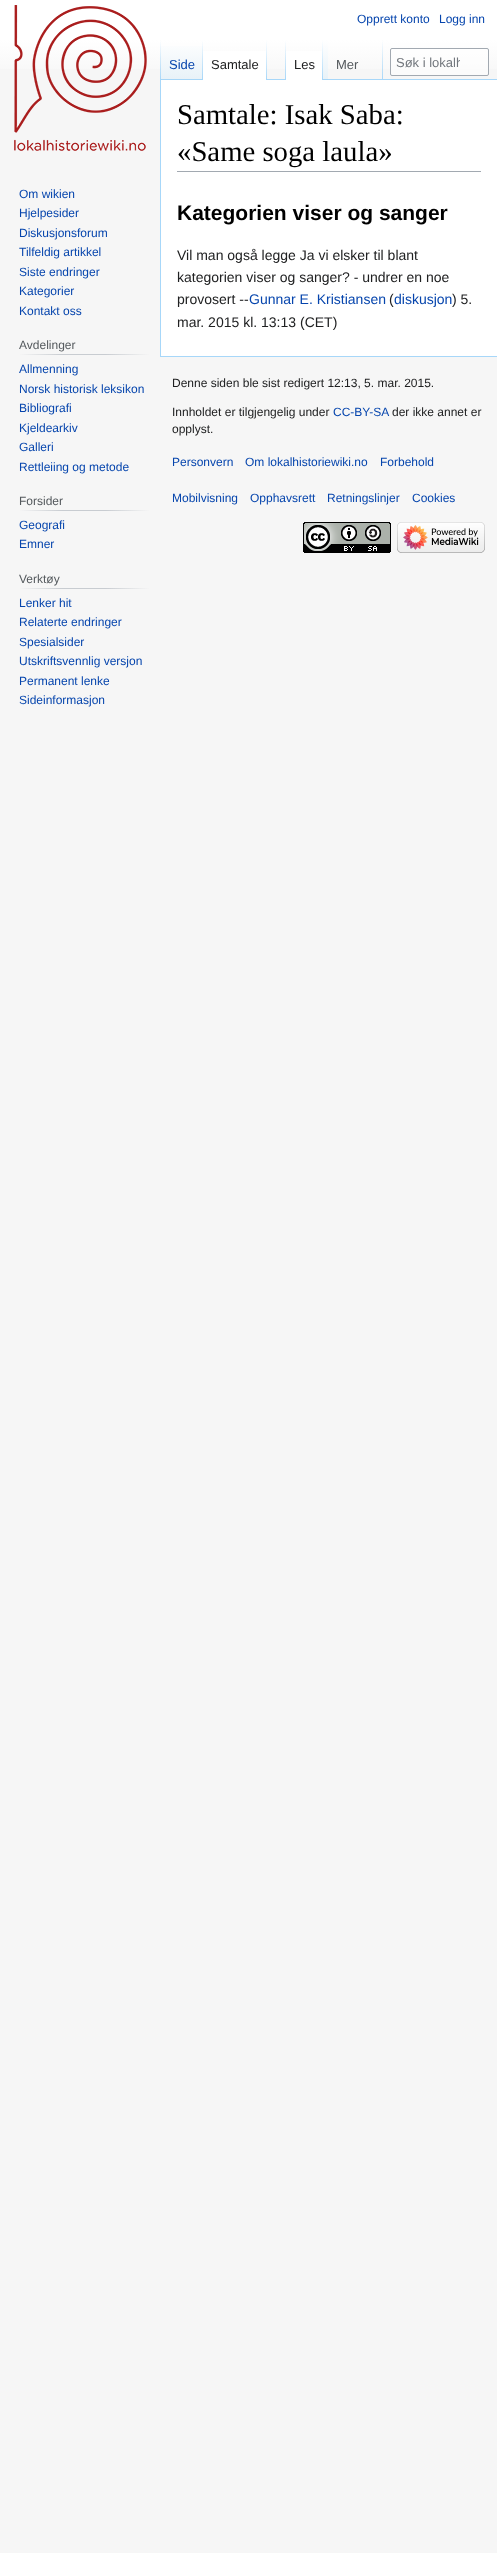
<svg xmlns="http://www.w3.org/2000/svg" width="497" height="2553">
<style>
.a{font:12px Liberation Sans;fill:#0645ad}
.b{font:13px Liberation Sans;fill:#0645ad}
.c{font:13px Liberation Sans;fill:#202122}
.d{font:13px Liberation Sans;fill:#54595d}
.e{font:13px Liberation Sans;fill:#72777d}
.f{font:12px Liberation Sans;fill:#54595d}
.g{font:28.75px Liberation Serif;fill:#000}
.h{font:bold 21px Liberation Sans;fill:#000}
.i{font:14px Liberation Sans;fill:#202122}
.j{font:14px Liberation Sans;fill:#0645ad}
.k{font:12px Liberation Sans;fill:#202122}
</style>
<defs>
<linearGradient id="g1" gradientUnits="userSpaceOnUse" x1="249" y1="0" x2="249" y2="80"><stop offset="0.5" stop-color="#fff"/><stop offset="1" stop-color="#f6f6f6"/></linearGradient>
<linearGradient id="g2" gradientUnits="userSpaceOnUse" x1="161" y1="40" x2="161" y2="80"><stop offset="0" stop-color="#a7d7f9" stop-opacity="0"/><stop offset="1" stop-color="#a7d7f9"/></linearGradient>
<linearGradient id="g3" gradientUnits="userSpaceOnUse" x1="182" y1="80" x2="182" y2="40"><stop offset="0" stop-color="#77c1f6"/><stop offset="0.03" stop-color="#e8f2f8"/><stop offset="1" stop-color="#fff"/></linearGradient>
<linearGradient id="g4" gradientUnits="userSpaceOnUse" x1="203" y1="40" x2="203" y2="80"><stop offset="0" stop-color="#a7d7f9" stop-opacity="0"/><stop offset="1" stop-color="#a7d7f9"/></linearGradient>
<linearGradient id="g5" gradientUnits="userSpaceOnUse" x1="267" y1="40" x2="267" y2="80"><stop offset="0" stop-color="#fff"/><stop offset="1" stop-color="#a7d7f9"/></linearGradient>
<linearGradient id="g6" gradientUnits="userSpaceOnUse" x1="286" y1="40" x2="286" y2="80"><stop offset="0" stop-color="#a7d7f9" stop-opacity="0"/><stop offset="1" stop-color="#a7d7f9"/></linearGradient>
<linearGradient id="g7" gradientUnits="userSpaceOnUse" x1="323" y1="40" x2="323" y2="80"><stop offset="0" stop-color="#fff"/><stop offset="1" stop-color="#a7d7f9"/></linearGradient>
<linearGradient id="g8" gradientUnits="userSpaceOnUse" x1="326" y1="80" x2="326" y2="40"><stop offset="0" stop-color="#77c1f6"/><stop offset="0.03" stop-color="#e8f2f8"/><stop offset="1" stop-color="#fff"/></linearGradient>
<linearGradient id="g9" gradientUnits="userSpaceOnUse" x1="383" y1="40" x2="383" y2="80"><stop offset="0" stop-color="#a7d7f9" stop-opacity="0"/><stop offset="1" stop-color="#a7d7f9"/></linearGradient>
<linearGradient id="g10" gradientUnits="userSpaceOnUse" x1="19" y1="355" x2="150" y2="355"><stop offset="0" stop-color="#f6f6f6"/><stop offset="0.33" stop-color="#c8ccd1"/><stop offset="0.66" stop-color="#c8ccd1"/><stop offset="1" stop-color="#f6f6f6"/></linearGradient>
<linearGradient id="g11" gradientUnits="userSpaceOnUse" x1="19" y1="511" x2="150" y2="511"><stop offset="0" stop-color="#f6f6f6"/><stop offset="0.33" stop-color="#c8ccd1"/><stop offset="0.66" stop-color="#c8ccd1"/><stop offset="1" stop-color="#f6f6f6"/></linearGradient>
<linearGradient id="g12" gradientUnits="userSpaceOnUse" x1="19" y1="589" x2="150" y2="589"><stop offset="0" stop-color="#f6f6f6"/><stop offset="0.33" stop-color="#c8ccd1"/><stop offset="0.66" stop-color="#c8ccd1"/><stop offset="1" stop-color="#f6f6f6"/></linearGradient>
<clipPath id="clip1"><path d="M396 55h64v15H396z"/></clipPath>
</defs>
<rect width="100%" height="100%" fill="#f6f6f6"/>
<path fill="url(#g1)" d="M0 0h497v69H0z"/>
<path fill="#a7d7f9" d="M160 356h337v1H160z"/>
<path fill="#a7d7f9" d="M160 79h1v278H160z"/>
<path fill="url(#g2)" d="M160 40h1v40H160z"/>
<path fill="url(#g3)" d="M161 46h42v34H161z"/>
<path fill="url(#g4)" d="M202 40h1v40H202z"/>
<path fill="#fff" d="M203 51h63v29H203z"/>
<path fill="url(#g5)" d="M266 40h1v40H266z"/>
<path fill="#a7d7f9" d="M267 79h230v1H267z"/>
<path fill="url(#g6)" d="M285 40h1v40H285z"/>
<path fill="#fff" d="M286 51h36v29H286z"/>
<path fill="url(#g7)" d="M322 40h1v40H322z"/>
<path fill="url(#g8)" d="M323 40h5v40H323z"/>
<path fill="url(#g9)" d="M382 40h1v40H382z"/>
<rect fill="#ffffff80" stroke="#a2a9b1" x="390.5" y="48.5" width="98" height="27" rx="1.5"/>
<image href="1.png" x="14" y="5" width="133" height="146"/>
<path fill="url(#g10)" d="M19 354h131v1H19z"/>
<path fill="url(#g11)" d="M19 510h131v1H19z"/>
<path fill="url(#g12)" d="M19 588h131v1H19z"/>
<path fill="#fff" d="M161 80h336v276H161z"/>
<path fill="#a2a9b1" d="M177 171h304v1H177z"/>
<image href="2.png" x="303" y="522" width="88" height="31"/>
<image href="3.png" x="397" y="522" width="88" height="31"/>
<text class="a" x="357" y="23">Opprett konto</text>
<text class="a" x="439" y="23">Logg inn</text>
<text class="b" x="169" y="69">Side</text>
<text class="c" x="211" y="69">Samtale</text>
<text class="c" x="294" y="69">Les</text>
<text class="d" x="336" y="69">Mer</text>
<g clip-path="url(#clip1)">
<text class="e" x="396" y="67">Søk i lokalh</text>
</g>
<text class="a" x="19" y="198">Om wikien</text>
<text class="a" x="19" y="217">Hjelpesider</text>
<text class="a" x="19" y="237">Diskusjonsforum</text>
<text class="a" x="19" y="256">Tilfeldig artikkel</text>
<text class="a" x="19" y="276">Siste endringer</text>
<text class="a" x="19" y="295">Kategorier</text>
<text class="a" x="19" y="315">Kontakt oss</text>
<text class="f" x="19" y="349">Avdelinger</text>
<text class="a" x="19" y="373">Allmenning</text>
<text class="a" x="19" y="393">Norsk historisk leksikon</text>
<text class="a" x="19" y="412">Bibliografi</text>
<text class="a" x="19" y="432">Kjeldearkiv</text>
<text class="a" x="19" y="451">Galleri</text>
<text class="a" x="19" y="471">Rettleiing og metode</text>
<text class="f" x="19" y="505">Forsider</text>
<text class="a" x="19" y="529">Geografi</text>
<text class="a" x="19" y="548">Emner</text>
<text class="f" x="19" y="583">Verktøy</text>
<text class="a" x="19" y="607">Lenker hit</text>
<text class="a" x="19" y="626">Relaterte endringer</text>
<text class="a" x="19" y="646">Spesialsider</text>
<text class="a" x="19" y="665">Utskriftsvennlig versjon</text>
<text class="a" x="19" y="685">Permanent lenke</text>
<text class="a" x="19" y="704">Sideinformasjon</text>
<text class="g" x="177" y="124">Samtale: Isak Saba:</text>
<text class="g" x="177" y="161">«Same soga laula»</text>
<text class="h" x="177" y="220">Kategorien viser og sanger</text>
<text class="i" x="177" y="260">Vil man også legge Ja vi elsker til blant</text>
<text class="i" x="177" y="282">kategorien viser og sanger? - undrer en noe</text>
<text class="i" x="177" y="304">provosert --</text>
<text class="j" x="249" y="304">Gunnar E. Kristiansen</text>
<text class="i" x="389" y="304">(</text>
<text class="j" x="394" y="304">diskusjon</text>
<text class="i" x="452" y="304">) 5.</text>
<text class="i" x="177" y="327">mar. 2015 kl. 13:13 (CET)</text>
<text class="k" x="172" y="387">Denne siden ble sist redigert 12:13, 5. mar. 2015.</text>
<text class="k" x="172" y="416">Innholdet er tilgjengelig under</text>
<text class="a" x="333" y="416">CC-BY-SA</text>
<text class="k" x="392" y="416">der ikke annet er</text>
<text class="k" x="172" y="433">opplyst.</text>
<text class="a" x="172" y="466">Personvern</text>
<text class="a" x="245" y="466">Om lokalhistoriewiki.no</text>
<text class="a" x="380" y="466">Forbehold</text>
<text class="a" x="172" y="502">Mobilvisning</text>
<text class="a" x="250" y="502">Opphavsrett</text>
<text class="a" x="327" y="502">Retningslinjer</text>
<text class="a" x="412" y="502">Cookies</text>
</svg>
